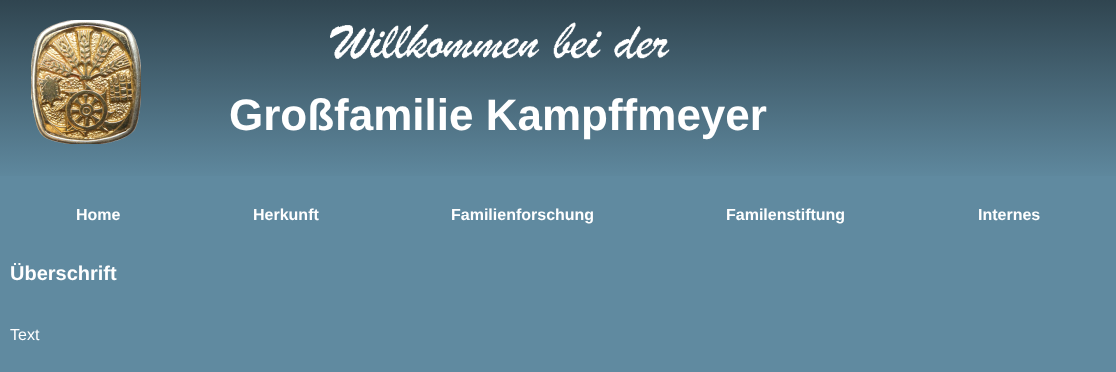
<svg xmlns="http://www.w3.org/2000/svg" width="1116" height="372">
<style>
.a{font:bold 44px Liberation Sans;fill:#fff}
.b{font:bold 16px Liberation Sans;fill:#fff}
.c{font:bold 20px Liberation Sans;fill:#fff}
.d{font:16px Liberation Sans;fill:#fff}
</style>
<defs>
<linearGradient id="g1" gradientUnits="userSpaceOnUse" x1="558" y1="0" x2="558" y2="182"><stop offset="0" stop-color="#304550"/><stop offset="1" stop-color="#608aa0"/></linearGradient>
</defs>
<rect width="100%" height="100%" fill="#608aa0"/>
<path fill="url(#g1)" d="M0 0h1116v176H0z"/>
<image href="1.png" x="31" y="20" width="110" height="124"/>
<image href="2.png" x="330" y="22" width="340" height="37"/>
<text class="a" x="229" y="130">Großfamilie Kampffmeyer</text>
<text class="b" x="76" y="220">Home</text>
<text class="b" x="253" y="220">Herkunft</text>
<text class="b" x="451" y="220">Familienforschung</text>
<text class="b" x="726" y="220">Familenstiftung</text>
<text class="b" x="978" y="220">Internes</text>
<text class="c" x="10" y="280">Überschrift</text>
<text class="d" x="10" y="340">Text</text>
</svg>
